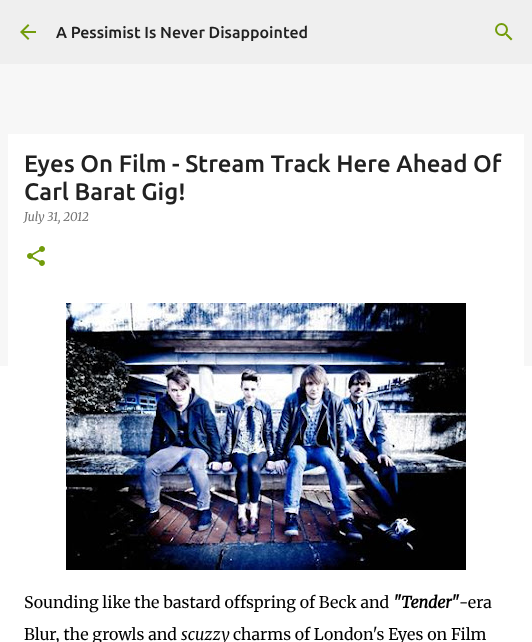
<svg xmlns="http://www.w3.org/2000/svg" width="532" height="642">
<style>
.a{font:500 16px Ubuntu;fill:#212121}
.b{font:500 24px Ubuntu;fill:#212121}
.c{font:italic 12px Merriweather;fill:#757575}
.d{font:300 16px Merriweather;fill:#000}
.e{font:italic bold 16px Merriweather;fill:#000}
.f{font:italic 16px Merriweather;fill:#000}
</style>
<rect width="100%" height="100%" fill="#f7f7f7"/>
<path fill="#efefef" d="M0 0h532v64H0z"/>
<image href="1.png" x="20" y="24" width="16" height="16"/>
<image href="2.png" x="495" y="23" width="18" height="18"/>
<path fill="#fff" d="M0 366h532v276H0z"/>
<path fill="#fff" d="M8 134h516v232H8z"/>
<image href="3.png" x="27" y="246" width="18" height="20"/>
<image href="4.png" x="66" y="303" width="400" height="267"/>
<text class="a" x="56" y="38">A Pessimist Is Never Disappointed</text>
<text class="b" x="24" y="172">Eyes On Film - Stream Track Here Ahead Of</text>
<text class="b" x="24" y="200">Carl Barat Gig!</text>
<text class="c" x="24" y="221">July 31, 2012</text>
<text class="d" x="24" y="608">Sounding like the bastard offspring of Beck and</text>
<text class="e" x="393" y="608">"Tender"</text>
<text class="d" x="459" y="608">-era</text>
<text class="d" x="24" y="640">Blur, the growls and</text>
<text class="f" x="181" y="640">scuzzy</text>
<text class="d" x="233" y="640">charms of London's Eyes on Film</text>
</svg>
